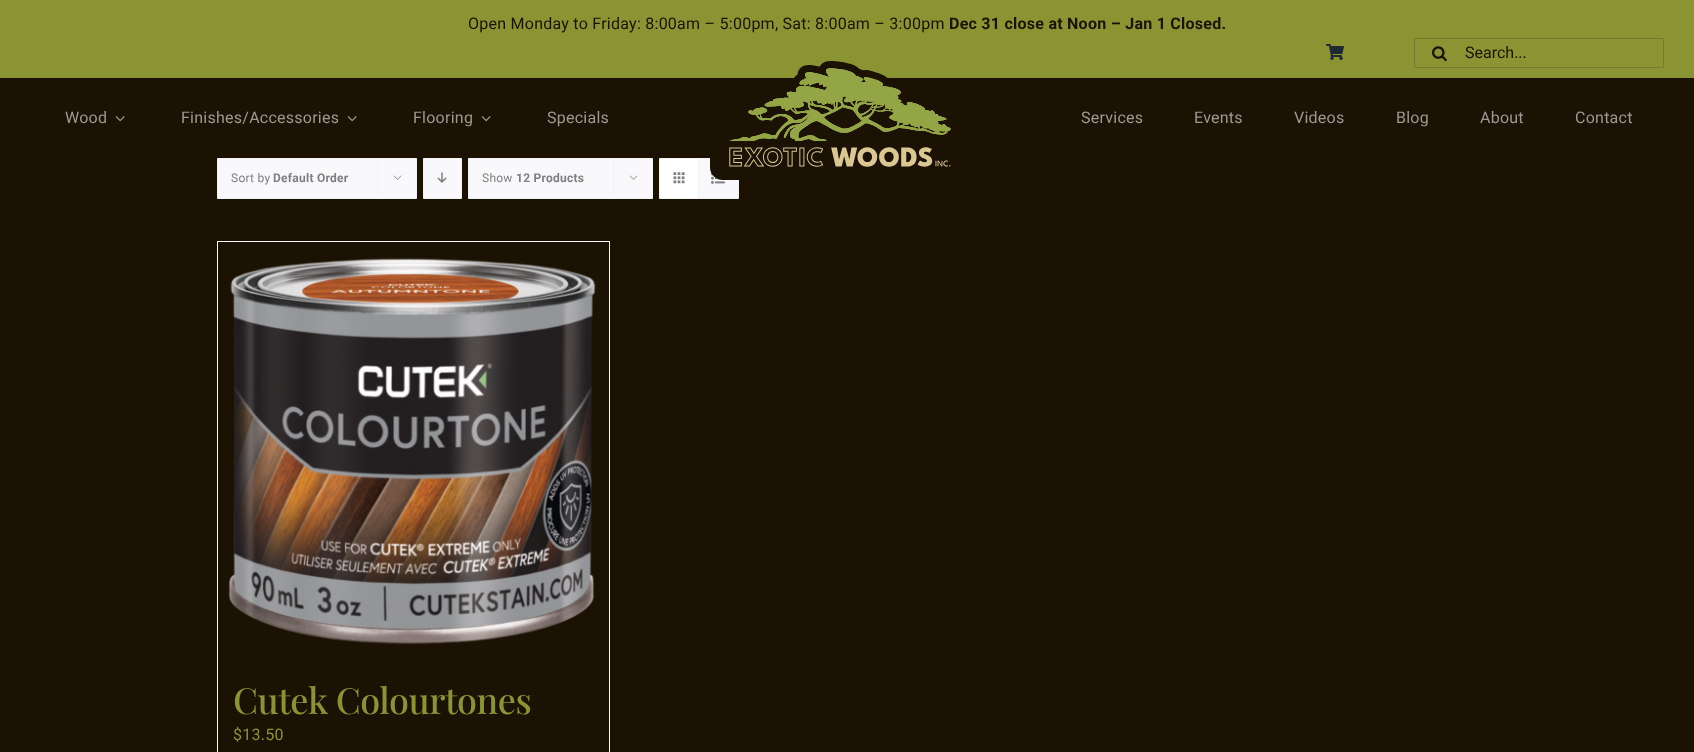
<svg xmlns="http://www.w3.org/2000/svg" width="1694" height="752">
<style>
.a{font:16px Roboto;letter-spacing:0.25px;fill:#1b1204}
.b{font:bold 16px Roboto;letter-spacing:0.25px;fill:#1b1204}
.c{font:16px Roboto;fill:#1b1204}
.d{font:16px Roboto;letter-spacing:0.25px;fill:#9d9993}
.e{font:12px Roboto;letter-spacing:0.25px;fill:#807f7f}
.f{font:bold 12px Roboto;letter-spacing:0.25px;fill:#807f7f}
.g{font:500 36px Playfair Display;letter-spacing:-0.5px;fill:#8a9432}
.h{font:16px Roboto;letter-spacing:0.25px;fill:#8a9432}
</style>
<rect width="100%" height="100%" fill="#1b1204"/>
<path fill="#8a9432" d="M0 0h1694v78H0z"/>
<image href="1.png" x="1326" y="44" width="18" height="16"/>
<path fill="none" stroke="#757b29" d="M1414.5 38.5h249v29H1414.5z"/>
<image href="2.png" x="1432" y="46" width="15" height="16"/>
<image href="3.png" x="115" y="116" width="10" height="6"/>
<image href="3.png" x="347" y="116" width="10" height="6"/>
<image href="3.png" x="481" y="116" width="10" height="6"/>
<path fill="none" stroke="#f2f3f5" d="M659.5 158.5h79v40H659.5z"/>
<path fill="#f9f9fb" d="M699 159h39v39H699z"/>
<image href="8.png" x="711" y="172" width="14" height="12"/>
<image href="4.png" x="710" y="61" width="241" height="119"/>
<path fill="#f9f9fb" stroke="#f2f3f5" d="M217.5 158.5h199v40H217.5z"/>
<path fill="#f2f3f5" d="M377 158h1v39H377z"/>
<image href="5.png" x="393" y="175" width="9" height="5"/>
<path fill="#f9f9fb" stroke="#f2f3f5" d="M423.5 158.5h38v40H423.5z"/>
<image href="6.png" x="437" y="172" width="10" height="11"/>
<path fill="#f9f9fb" stroke="#f2f3f5" d="M468.5 158.5h184v40H468.5z"/>
<path fill="#f2f3f5" d="M613 158h1v39H613z"/>
<image href="5.png" x="629" y="175" width="9" height="5"/>
<path fill="#fff" d="M660 159h38v39H660z"/>
<path fill="#f2f3f5" d="M698 159h1v39H698z"/>
<image href="7.png" x="673" y="172" width="12" height="12"/>
<path fill="#f9f9fb" d="M217 241h393v1H217z"/>
<path fill="#f9f9fb" d="M609 241h1v511H609z"/>
<path fill="#f9f9fb" d="M217 241h1v511H217z"/>
<image href="9.png" x="228" y="258" width="368" height="387"/>
<text class="a" x="468" y="29">Open Monday to Friday: 8:00am – 5:00pm, Sat: 8:00am – 3:00pm</text>
<text class="b" x="949" y="29">Dec 31 close at Noon – Jan 1 Closed.</text>
<text class="c" x="1465" y="58">Search...</text>
<text class="d" x="65" y="123">Wood</text>
<text class="d" x="181" y="123">Finishes/Accessories</text>
<text class="d" x="413" y="123">Flooring</text>
<text class="d" x="547" y="123">Specials</text>
<text class="d" x="1081" y="123">Services</text>
<text class="d" x="1194" y="123">Events</text>
<text class="d" x="1294" y="123">Videos</text>
<text class="d" x="1396" y="123">Blog</text>
<text class="d" x="1480" y="123">About</text>
<text class="d" x="1575" y="123">Contact</text>
<text class="e" x="231" y="182">Sort by</text>
<text class="f" x="273" y="182">Default Order</text>
<text class="e" x="482" y="182">Show</text>
<text class="f" x="516" y="182">12 Products</text>
<text class="g" x="233" y="714">Cutek Colourtones</text>
<text class="h" x="233" y="740">$13.50</text>
</svg>
